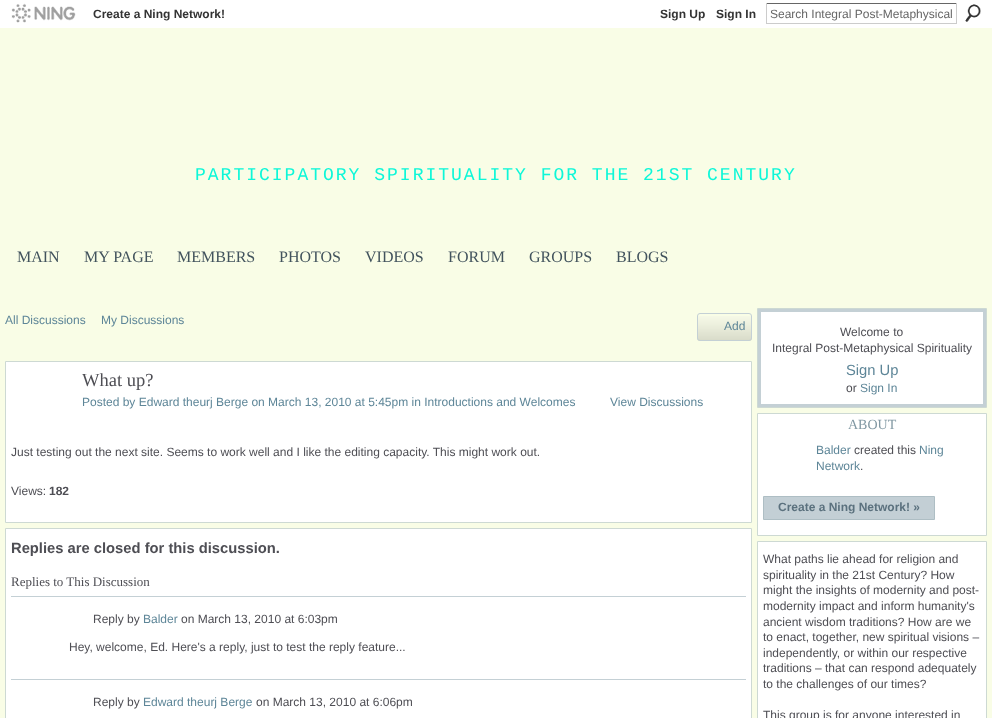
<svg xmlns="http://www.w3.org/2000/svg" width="992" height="718">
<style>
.a{font:bold 12px Liberation Sans;fill:#333}
.b{font:12px Liberation Sans;fill:#666}
.c{font:18px Liberation Mono;letter-spacing:2px;fill:#0df7d8}
.d{font:16px Liberation Serif;fill:#42535d}
.e{font:12px Liberation Sans;fill:#5e8698}
.f{font:18.5px Liberation Serif;fill:#4e4e54}
.g{font:12px Liberation Sans;fill:#4e4e54}
.h{font:bold 12px Liberation Sans;fill:#4e4e54}
.i{font:bold 14.75px Liberation Sans;fill:#4e4e54}
.j{font:13px Liberation Serif;fill:#4e4e54}
.k{font:14.75px Liberation Sans;fill:#5e8698}
.l{font:14px Liberation Serif;fill:#8198a3}
.m{font:bold 12px Liberation Sans;fill:#5b717e}
</style>
<rect width="100%" height="100%" fill="#f9fde6"/>
<path fill="#fff" d="M0 0h992v28H0z"/>
<image href="1.png" x="11" y="3" width="65" height="20"/>
<path fill="#666" d="M766 3h191v1H766z"/>
<path fill="#ccc" d="M956 3h1v21H956z"/>
<path fill="#ccc" d="M766 23h191v1H766z"/>
<path fill="#ccc" d="M766 3h1v21H766z"/>
<image href="2.png" x="965" y="4" width="16" height="18"/>
<image href="3.png" x="697" y="316" width="55" height="25"/>
<rect fill="none" stroke="#c4d0d5" x="697.5" y="313.5" width="54" height="27" rx="2.5"/>
<path fill="#fff" stroke="#cdd9d3" d="M5.5 361.5h746v161H5.5z"/>
<path fill="#fff" stroke="#cdd9d3" d="M5.5 528.5h746v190H5.5z"/>
<path fill="#c4d0d5" d="M11 596h735v1H11z"/>
<path fill="#c4d0d5" d="M11 679h735v1H11z"/>
<path fill="#fff" d="M761 312h222v92H761z"/>
<path fill="none" stroke="#cdd9d3" d="M757.5 308.5h229v99H757.5z"/>
<path fill="none" stroke="#c4d0d5" stroke-width="3" d="M759.5 310.5h225v95H759.5z"/>
<path fill="#fff" stroke="#cdd9d3" d="M757.5 413.5h229v122H757.5z"/>
<path fill="#c3cfd5" stroke="#aebec4" d="M763.5 496.5h171v23H763.5z"/>
<path fill="#fff" stroke="#cdd9d3" d="M757.5 541.5h229v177H757.5z"/>
<text class="a" x="93" y="18">Create a Ning Network!</text>
<text class="a" x="660" y="18">Sign Up</text>
<text class="a" x="716" y="18">Sign In</text>
<text class="b" x="770" y="18">Search Integral Post-Metaphysical</text>
<text class="c" x="195" y="180">PARTICIPATORY SPIRITUALITY FOR THE 21ST CENTURY</text>
<text class="d" x="17" y="262">MAIN</text>
<text class="d" x="84" y="262">MY PAGE</text>
<text class="d" x="177" y="262">MEMBERS</text>
<text class="d" x="279" y="262">PHOTOS</text>
<text class="d" x="365" y="262">VIDEOS</text>
<text class="d" x="448" y="262">FORUM</text>
<text class="d" x="529" y="262">GROUPS</text>
<text class="d" x="616" y="262">BLOGS</text>
<text class="e" x="5" y="324">All Discussions</text>
<text class="e" x="101" y="324">My Discussions</text>
<text class="e" x="724" y="330">Add</text>
<text class="f" x="82" y="386">What up?</text>
<text class="e" x="82" y="406">Posted by Edward theurj Berge on March 13, 2010 at 5:45pm in Introductions and Welcomes</text>
<text class="e" x="610" y="406">View Discussions</text>
<text class="g" x="11" y="456">Just testing out the next site. Seems to work well and I like the editing capacity. This might work out.</text>
<text class="g" x="11" y="495">Views:</text>
<text class="h" x="49" y="495">182</text>
<text class="i" x="11" y="553">Replies are closed for this discussion.</text>
<text class="j" x="11" y="586">Replies to This Discussion</text>
<text class="g" x="93" y="623">Reply by</text>
<text class="e" x="143" y="623">Balder</text>
<text class="g" x="181" y="623">on March 13, 2010 at 6:03pm</text>
<text class="g" x="69" y="651">Hey, welcome, Ed. Here's a reply, just to test the reply feature...</text>
<text class="g" x="93" y="706">Reply by</text>
<text class="e" x="143" y="706">Edward theurj Berge</text>
<text class="g" x="256" y="706">on March 13, 2010 at 6:06pm</text>
<text class="g" x="840" y="336">Welcome to</text>
<text class="g" x="772" y="352">Integral Post-Metaphysical Spirituality</text>
<text class="k" x="846" y="375">Sign Up</text>
<text class="g" x="846" y="392">or</text>
<text class="e" x="860" y="392">Sign In</text>
<text class="l" x="848" y="429">ABOUT</text>
<text class="e" x="816" y="454">Balder</text>
<text class="g" x="854" y="454">created this</text>
<text class="e" x="919" y="454">Ning</text>
<text class="e" x="816" y="470">Network</text>
<text class="g" x="860" y="470">.</text>
<text class="m" x="778" y="511">Create a Ning Network! »</text>
<text class="g" x="763" y="563">What paths lie ahead for religion and</text>
<text class="g" x="763" y="579">spirituality in the 21st Century? How</text>
<text class="g" x="763" y="594">might the insights of modernity and post-</text>
<text class="g" x="763" y="610">modernity impact and inform humanity's</text>
<text class="g" x="763" y="626">ancient wisdom traditions? How are we</text>
<text class="g" x="763" y="641">to enact, together, new spiritual visions –</text>
<text class="g" x="763" y="657">independently, or within our respective</text>
<text class="g" x="763" y="672">traditions – that can respond adequately</text>
<text class="g" x="763" y="688">to the challenges of our times?</text>
<text class="g" x="763" y="719">This group is for anyone interested in</text>
</svg>
